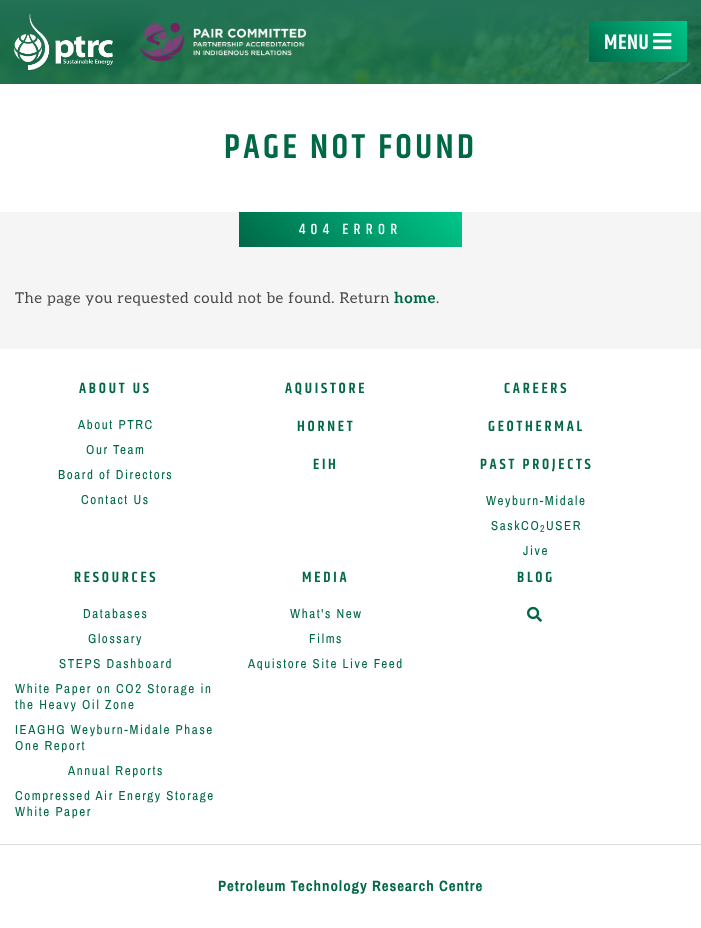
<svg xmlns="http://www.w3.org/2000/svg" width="701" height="928">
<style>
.a{font:600 21px Khand;letter-spacing:0.55px;fill:#fff}
.b{font:600 34.75px Khand;letter-spacing:3.4px;fill:#006747}
.c{font:500 15px Khand;letter-spacing:5.25px;fill:#fff}
.d{font:15px Aleo;letter-spacing:0.55px;fill:#4a4a4a}
.e{font:bold 15px Aleo;letter-spacing:0.55px;fill:#006747}
.f{font:600 15px Khand;letter-spacing:2.75px;fill:#006747}
.g{font:13px Archivo Narrow;letter-spacing:1.6px;fill:#006747}
.h{font:10px Archivo Narrow;letter-spacing:1.6px;fill:#006747}
.i{font:bold 15px Archivo Narrow;letter-spacing:0.9px;fill:#006747}
</style>
<defs>
<linearGradient id="g1" gradientUnits="userSpaceOnUse" x1="673" y1="6.7" x2="603" y2="76"><stop offset="0" stop-color="#00c789"/><stop offset="1" stop-color="#006747"/></linearGradient>
<linearGradient id="g2" gradientUnits="userSpaceOnUse" x1="415" y1="165" x2="286" y2="294"><stop offset="0" stop-color="#00c789"/><stop offset="1" stop-color="#006747"/></linearGradient>
</defs>
<rect width="100%" height="100%" fill="#fff"/>
<image href="1.png" x="0" y="0" width="701" height="84"/>
<image href="2.png" x="14" y="14" width="99" height="56"/>
<image href="3.png" x="140" y="23" width="166" height="38"/>
<path fill="url(#g1)" d="M589 21h98v41H589z"/>
<image href="4.png" x="653" y="33" width="19" height="17"/>
<path fill="#f5f5f5" d="M0 212h701v137H0z"/>
<path fill="url(#g2)" d="M239 212h223v35H239z"/>
<image href="5.png" x="527" y="606" width="15" height="16"/>
<path fill="#dcdcdc" d="M0 844h701v1H0z"/>
<text class="a" x="604" y="49">MENU</text>
<text class="b" x="224" y="158">PAGE NOT FOUND</text>
<text class="c" x="299" y="234">404 ERROR</text>
<text class="d" x="15" y="303">The page you requested could not be found. Return</text>
<text class="e" x="394" y="303">home</text>
<text class="d" x="436" y="303">.</text>
<text class="f" x="79" y="393">ABOUT US</text>
<text class="g" x="78" y="429">About PTRC</text>
<text class="g" x="86" y="454">Our Team</text>
<text class="g" x="58" y="479">Board of Directors</text>
<text class="g" x="81" y="504">Contact Us</text>
<text class="f" x="285" y="393">AQUISTORE</text>
<text class="f" x="504" y="393">CAREERS</text>
<text class="f" x="297" y="431">HORNET</text>
<text class="f" x="488" y="431">GEOTHERMAL</text>
<text class="f" x="313" y="469">EIH</text>
<text class="f" x="480" y="469">PAST PROJECTS</text>
<text class="g" x="486" y="505">Weyburn-Midale</text>
<text class="g" x="491" y="530">SaskCO</text>
<text class="h" x="540" y="532">2</text>
<text class="g" x="546" y="530">USER</text>
<text class="g" x="523" y="555">Jive</text>
<text class="f" x="74" y="582">RESOURCES</text>
<text class="g" x="83" y="618">Databases</text>
<text class="g" x="88" y="643">Glossary</text>
<text class="g" x="59" y="668">STEPS Dashboard</text>
<text class="g" x="15" y="693">White Paper on CO2 Storage in</text>
<text class="g" x="15" y="709">the Heavy Oil Zone</text>
<text class="g" x="15" y="734">IEAGHG Weyburn-Midale Phase</text>
<text class="g" x="15" y="750">One Report</text>
<text class="g" x="68" y="775">Annual Reports</text>
<text class="g" x="15" y="800">Compressed Air Energy Storage</text>
<text class="g" x="15" y="816">White Paper</text>
<text class="f" x="302" y="582">MEDIA</text>
<text class="g" x="290" y="618">What's New</text>
<text class="g" x="309" y="643">Films</text>
<text class="g" x="248" y="668">Aquistore Site Live Feed</text>
<text class="f" x="517" y="582">BLOG</text>
<text class="i" x="218" y="891">Petroleum Technology Research Centre</text>
</svg>
